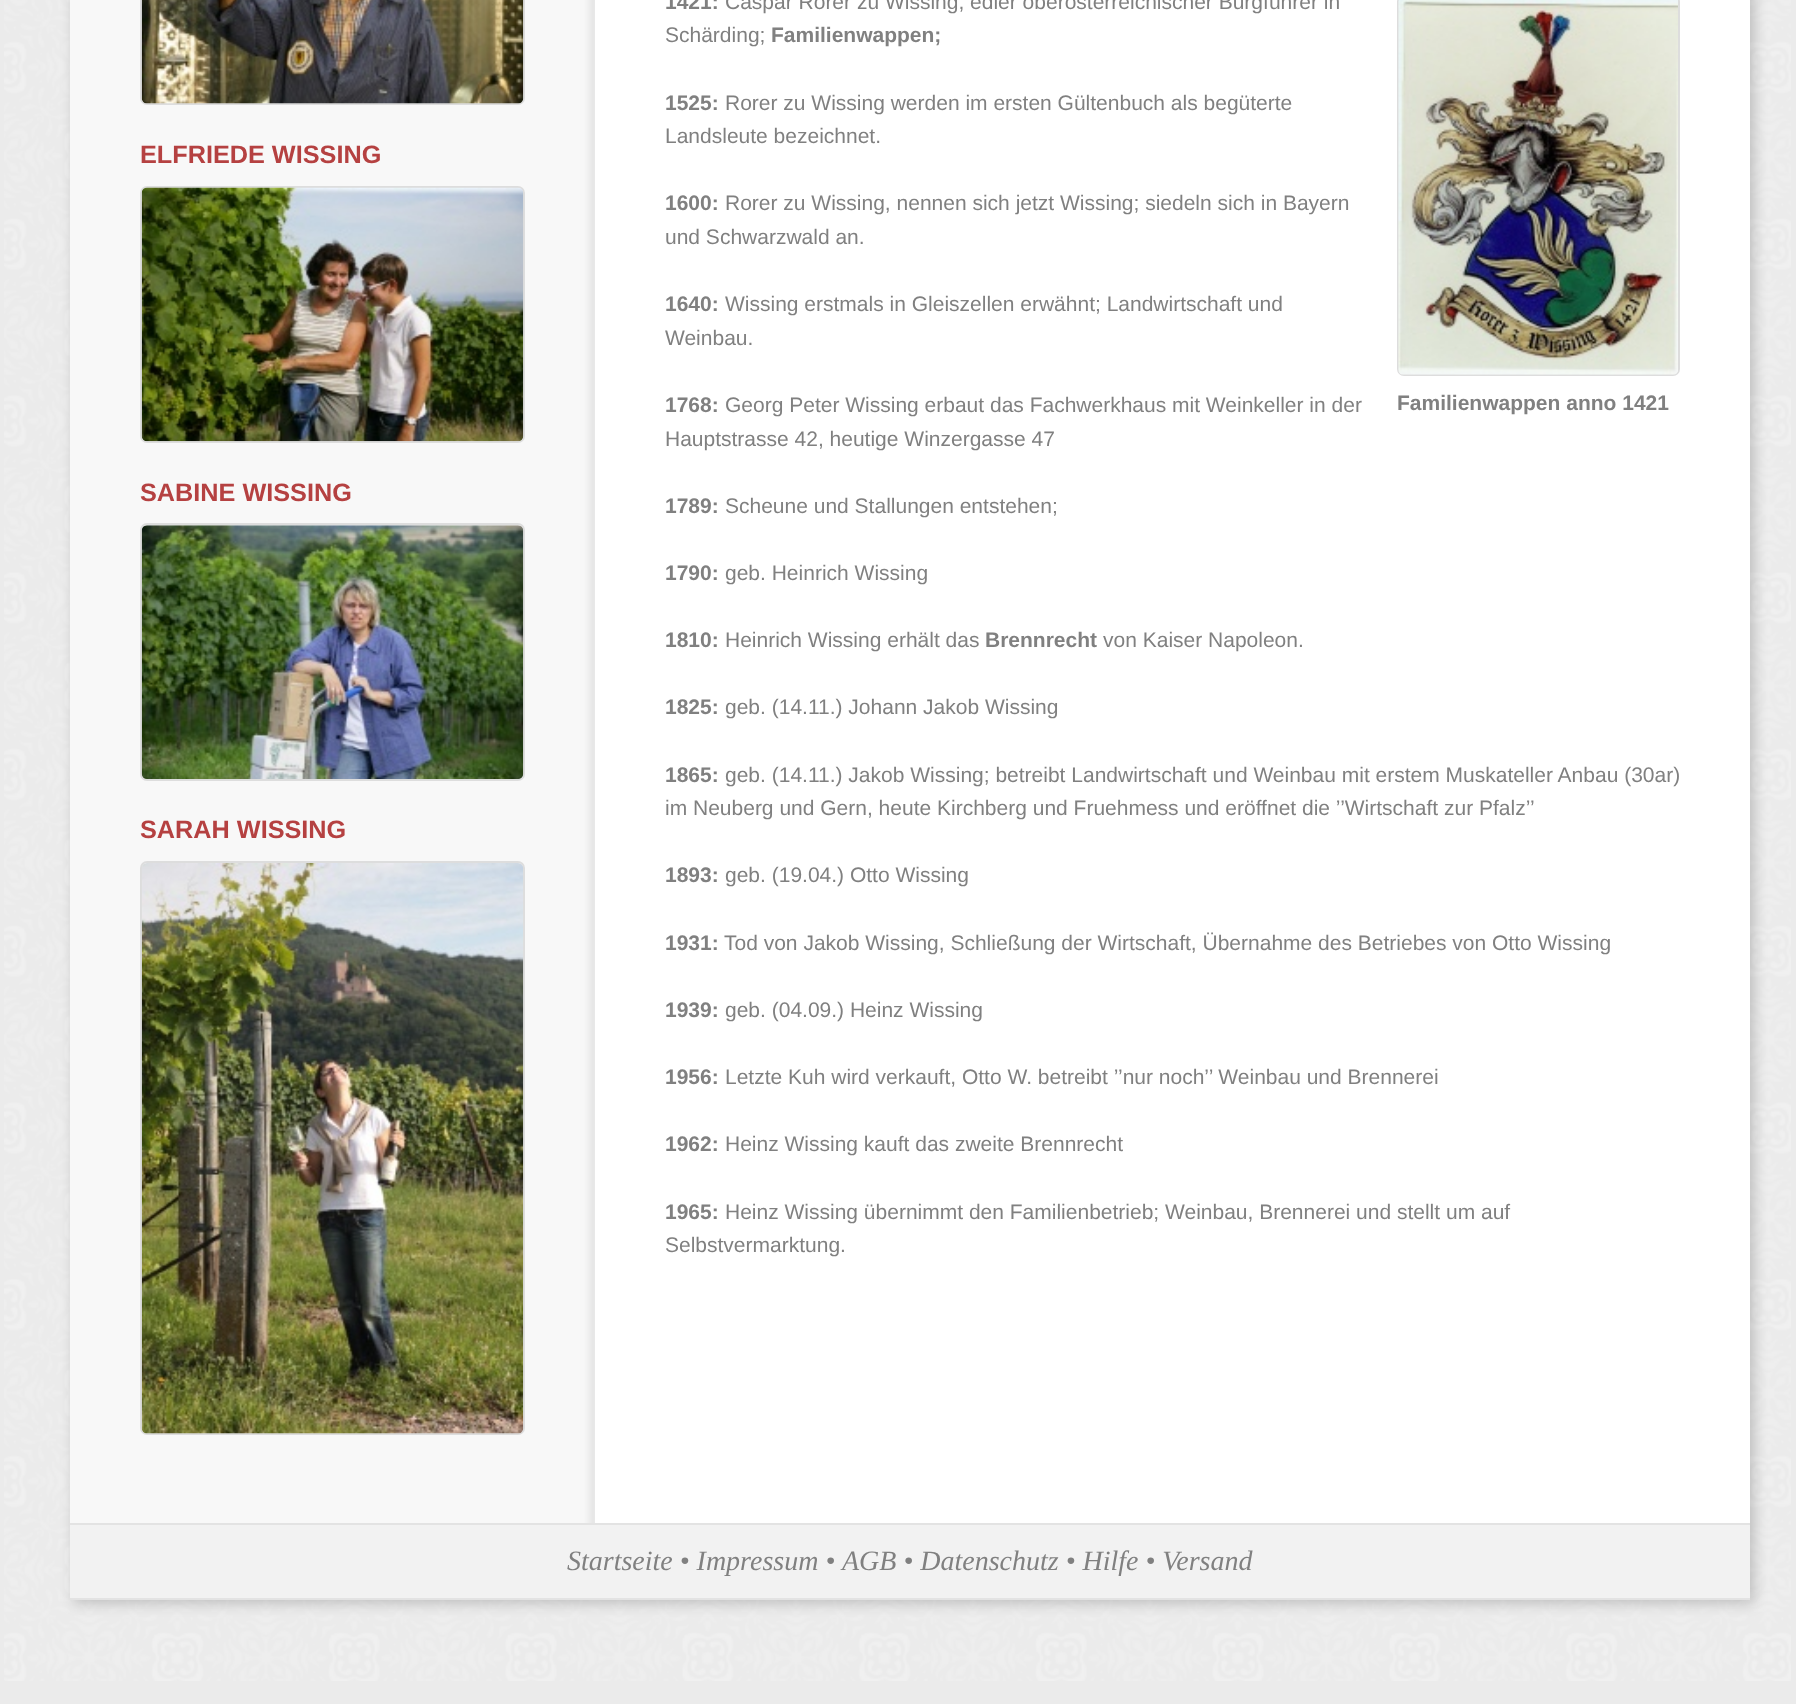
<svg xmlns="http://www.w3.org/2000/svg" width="1796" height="1704">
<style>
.a{font:bold 25.25px Liberation Sans;fill:#b54141}
.b{font:bold 21px Liberation Sans;fill:#808080}
.c{font:21px Liberation Sans;fill:#808080}
.d{font:italic 28px Liberation Serif;fill:#808080}
</style>
<rect width="100%" height="100%" fill="#ebebeb"/>
<image href="1.png" x="4" y="0" width="1787" height="1681"/>
<path fill="#00000033" filter="blur(7px)" d="M74 -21h1680v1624H74z"/>
<path fill="#fff" d="M595 0h1155v1523H595z"/>
<image href="2.png" x="70" y="0" width="525" height="1523"/>
<rect fill="none" stroke="#ddd" stroke-width="2" x="141" y="-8" width="383" height="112" rx="6"/>
<image href="3.png" x="141" y="0" width="383" height="104"/>
<rect fill="none" stroke="#ddd" stroke-width="2" x="141" y="187" width="383" height="255" rx="6"/>
<image href="4.png" x="141" y="187" width="383" height="255"/>
<rect fill="none" stroke="#ddd" stroke-width="2" x="141" y="524" width="383" height="256" rx="6"/>
<image href="5.png" x="141" y="525" width="383" height="254"/>
<rect fill="none" stroke="#ddd" stroke-width="2" x="141" y="862" width="383" height="572" rx="6"/>
<image href="6.png" x="141" y="863" width="383" height="571"/>
<rect fill="none" stroke="#ddd" stroke-width="2" x="1398" y="-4" width="281" height="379" rx="6"/>
<image href="7.png" x="1398" y="0" width="280" height="375"/>
<path fill="#f2f2f2" d="M70 1525h1680v73H70z"/>
<path fill="#e3e3e3" d="M70 1523h1680v2H70z"/>
<path fill="#e3e3e3" d="M70 1598h1680v2H70z"/>
<text class="a" x="140" y="163">ELFRIEDE WISSING</text>
<text class="a" x="140" y="501">SABINE WISSING</text>
<text class="a" x="140" y="838">SARAH WISSING</text>
<text class="b" x="665" y="9">1421:</text>
<text class="c" x="725" y="9">Caspar Rorer zu Wissing, edler oberösterreichischer Burgführer in</text>
<text class="c" x="665" y="42">Schärding;</text>
<text class="b" x="771" y="42">Familienwappen;</text>
<text class="b" x="665" y="110">1525:</text>
<text class="c" x="725" y="110">Rorer zu Wissing werden im ersten Gültenbuch als begüterte</text>
<text class="c" x="665" y="143">Landsleute bezeichnet.</text>
<text class="b" x="665" y="210">1600:</text>
<text class="c" x="725" y="210">Rorer zu Wissing, nennen sich jetzt Wissing; siedeln sich in Bayern</text>
<text class="c" x="665" y="244">und Schwarzwald an.</text>
<text class="b" x="665" y="311">1640:</text>
<text class="c" x="725" y="311">Wissing erstmals in Gleiszellen erwähnt; Landwirtschaft und</text>
<text class="c" x="665" y="345">Weinbau.</text>
<text class="b" x="665" y="412">1768:</text>
<text class="c" x="725" y="412">Georg Peter Wissing erbaut das Fachwerkhaus mit Weinkeller in der</text>
<text class="c" x="665" y="446">Hauptstrasse 42, heutige Winzergasse 47</text>
<text class="b" x="665" y="513">1789:</text>
<text class="c" x="725" y="513">Scheune und Stallungen entstehen;</text>
<text class="b" x="665" y="580">1790:</text>
<text class="c" x="725" y="580">geb. Heinrich Wissing</text>
<text class="b" x="665" y="647">1810:</text>
<text class="c" x="725" y="647">Heinrich Wissing erhält das</text>
<text class="b" x="985" y="647">Brennrecht</text>
<text class="c" x="1103" y="647">von Kaiser Napoleon.</text>
<text class="b" x="665" y="714">1825:</text>
<text class="c" x="725" y="714">geb. (14.11.) Johann Jakob Wissing</text>
<text class="b" x="665" y="782">1865:</text>
<text class="c" x="725" y="782">geb. (14.11.) Jakob Wissing; betreibt Landwirtschaft und Weinbau mit erstem Muskateller Anbau (30ar)</text>
<text class="c" x="665" y="815">im Neuberg und Gern, heute Kirchberg und Fruehmess und eröffnet die ’’Wirtschaft zur Pfalz’’</text>
<text class="b" x="665" y="882">1893:</text>
<text class="c" x="725" y="882">geb. (19.04.) Otto Wissing</text>
<text class="b" x="665" y="950">1931:</text>
<text class="c" x="724" y="950">Tod von Jakob Wissing, Schließung der Wirtschaft, Übernahme des Betriebes von Otto Wissing</text>
<text class="b" x="665" y="1017">1939:</text>
<text class="c" x="725" y="1017">geb. (04.09.) Heinz Wissing</text>
<text class="b" x="665" y="1084">1956:</text>
<text class="c" x="725" y="1084">Letzte Kuh wird verkauft, Otto W. betreibt ’’nur noch’’ Weinbau und Brennerei</text>
<text class="b" x="665" y="1151">1962:</text>
<text class="c" x="725" y="1151">Heinz Wissing kauft das zweite Brennrecht</text>
<text class="b" x="665" y="1219">1965:</text>
<text class="c" x="725" y="1219">Heinz Wissing übernimmt den Familienbetrieb; Weinbau, Brennerei und stellt um auf</text>
<text class="c" x="665" y="1252">Selbstvermarktung.</text>
<text class="b" x="1397" y="410">Familienwappen anno 1421</text>
<text class="d" x="567" y="1570">Startseite • Impressum •</text>
<text class="d" x="842" y="1570">AGB • Datenschutz • Hilfe • Versand</text>
</svg>
